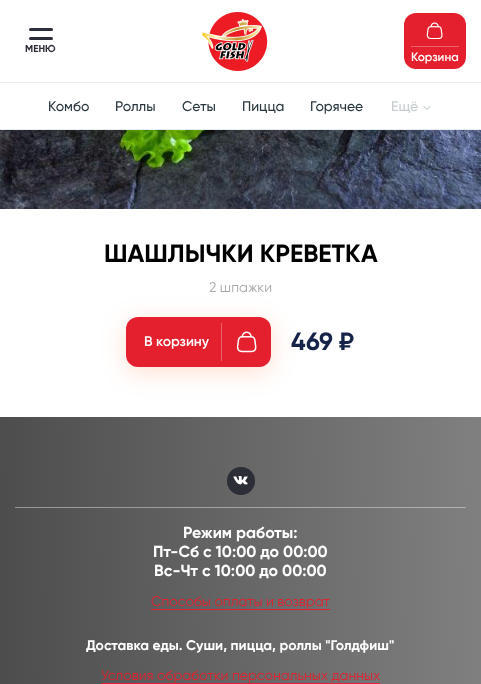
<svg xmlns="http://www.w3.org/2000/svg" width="481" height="684">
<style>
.a{font:bold 10px Gilroy;fill:#2b2d37}
.b{font:600 12px Gilroy;fill:#fff}
.c{font:500 14px Gilroy;fill:#28363d}
.d{font:500 14px Gilroy;fill:#c6ced1}
.e{font:bold 25px Gilroy;fill:#000}
.f{font:14px Gilroy;fill:#a6a7ab}
.g{font:600 14px Gilroy;fill:#fff}
.h{font:bold 25px Gilroy;fill:#16244a}
.i{font:bold 16px Gilroy;fill:#fff}
.j{font:14px Gilroy;fill:#e4202e}
.k{font:bold 14px Gilroy;fill:#fff}
</style>
<defs>
<linearGradient id="g1" gradientUnits="userSpaceOnUse" x1="-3.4" y1="601" x2="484" y2="592"><stop offset="0.01" stop-color="#4d4d4d"/><stop offset="1" stop-color="#808080"/></linearGradient>
<linearGradient id="g2" gradientUnits="userSpaceOnUse" x1="-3.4" y1="601" x2="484" y2="592"><stop offset="0.01" stop-color="#949494"/><stop offset="1" stop-color="#b3b3b3"/></linearGradient>
</defs>
<rect width="100%" height="100%" fill="#fff"/>
<path fill="#e7eef1" d="M0 129h481v1H0z"/>
<rect fill="#2b2d37" x="29" y="28" width="24" height="3" rx="1.5"/>
<rect fill="#2b2d37" x="29" y="37" width="24" height="3" rx="1.5"/>
<image href="1.png" x="202" y="12" width="66" height="59"/>
<rect fill="#e4202e" x="404" y="13" width="62" height="56" rx="12"/>
<image href="2.png" x="426" y="22" width="17" height="17"/>
<path fill="#ec636d" d="M411 46h48v1H411z"/>
<path fill="#e7eef1" d="M0 82h481v1H0z"/>
<image href="3.png" x="423" y="106" width="8" height="4"/>
<image href="4.png" x="0" y="130" width="481" height="79"/>
<rect fill="#ff5c1633" filter="blur(12.5px)" x="126" y="322" width="145" height="50" rx="12"/>
<rect fill="#e4202e" x="126" y="317" width="145" height="50" rx="12"/>
<image href="5.png" x="236" y="331" width="21" height="22"/>
<path fill="#ec636d" d="M221 323h1v38H221z"/>
<path fill="url(#g1)" d="M0 417h481v267H0z"/>
<path fill="url(#g2)" d="M15 507h451v1H15z"/>
<circle fill="#2b2d37" cx="241" cy="481" r="14"/>
<image href="6.png" x="233" y="476" width="15" height="9"/>
<path fill="#e4202e" d="M151 609h179v1H151z"/>
<path fill="#e4202e" d="M101 683h279v1H101z"/>
<text class="a" x="25" y="52">МЕНЮ</text>
<text class="b" x="411" y="61">Корзина</text>
<text class="c" x="48" y="111">Комбо</text>
<text class="c" x="115" y="111">Роллы</text>
<text class="c" x="182" y="111">Сеты</text>
<text class="c" x="242" y="111">Пицца</text>
<text class="c" x="310" y="111">Горячее</text>
<text class="d" x="391" y="111">Ещё</text>
<text class="e" x="104" y="262">ШАШЛЫЧКИ КРЕВЕТКА</text>
<text class="f" x="209" y="292">2 шпажки</text>
<text class="g" x="144" y="346">В корзину</text>
<text class="h" x="291" y="350">469 ₽</text>
<text class="i" x="183" y="538">Режим работы:</text>
<text class="i" x="153" y="557">Пт-Сб с 10:00 до 00:00</text>
<text class="i" x="154" y="576">Вс-Чт с 10:00 до 00:00</text>
<text class="j" x="151" y="606">Способы оплаты и возврат</text>
<text class="k" x="86" y="650">Доставка еды. Суши, пицца, роллы "Голдфиш"</text>
<text class="j" x="101" y="680">Условия обработки персональных данных</text>
</svg>
